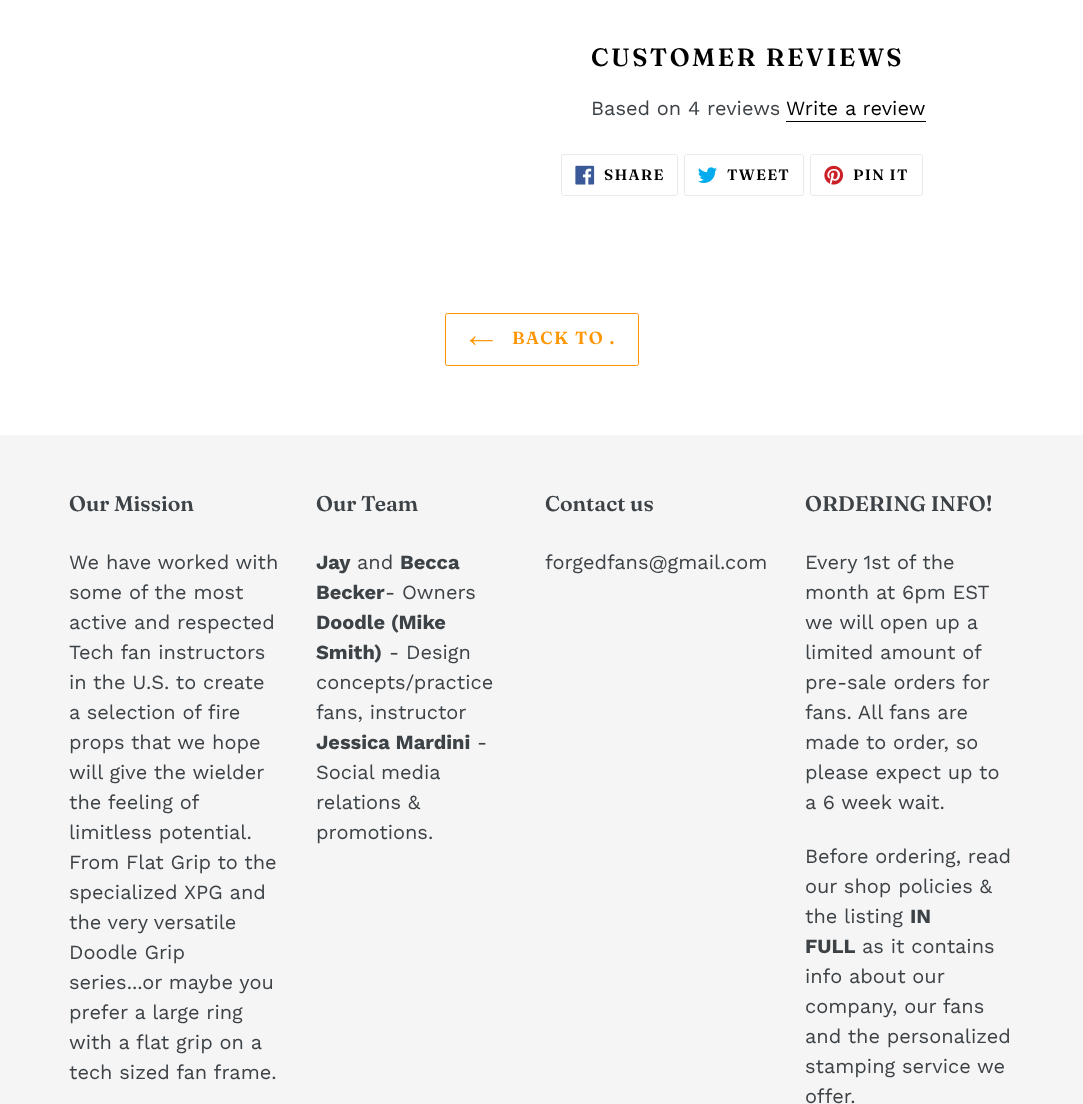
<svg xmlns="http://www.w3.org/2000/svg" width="1083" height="1104">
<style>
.a{font:600 25px Fraunces;letter-spacing:2.5px;fill:#000}
.b{font:20px Work Sans;fill:#3d4246}
.c{font:20px Work Sans;fill:#000}
.d{font:600 15px 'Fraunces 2';letter-spacing:1.25px;fill:#000}
.e{font:600 17.5px 'Fraunces 2';letter-spacing:1.5px;fill:#ff9500}
.f{font:600 21.25px 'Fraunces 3';fill:#3d4246}
.g{font:bold 20px Work Sans;fill:#3d4246}
</style>
<rect width="100%" height="100%" fill="#fff"/>
<path fill="#000" d="M786 121h140v1H786z"/>
<rect fill="none" stroke="#e8e9eb" x="561.5" y="154.5" width="116" height="41" rx="2"/>
<image href="1.png" x="575" y="165" width="20" height="20"/>
<rect fill="none" stroke="#e8e9eb" x="684.5" y="154.5" width="119" height="41" rx="2"/>
<image href="2.png" x="698" y="167" width="19" height="16"/>
<rect fill="none" stroke="#e8e9eb" x="810.5" y="154.5" width="112" height="41" rx="2"/>
<image href="3.png" x="824" y="165" width="20" height="20"/>
<rect fill="none" stroke="#ff9500" x="445.5" y="313.5" width="193" height="52" rx="2"/>
<image href="4.png" x="469" y="336" width="24" height="10"/>
<path fill="#f5f5f5" d="M0 435h1083v669H0z"/>
<text class="a" x="591" y="66">CUSTOMER REVIEWS</text>
<text class="b" x="591" y="115">Based on 4 reviews</text>
<text class="c" x="786" y="115">Write a review</text>
<text class="d" x="604" y="180">SHARE</text>
<text class="d" x="727" y="180">TWEET</text>
<text class="d" x="853" y="180">PIN IT</text>
<text class="e" x="512" y="344">BACK TO .</text>
<text class="f" x="69" y="511">Our Mission</text>
<text class="b" x="69" y="569">We have worked with</text>
<text class="b" x="69" y="599">some of the most</text>
<text class="b" x="69" y="629">active and respected</text>
<text class="b" x="69" y="659">Tech fan instructors</text>
<text class="b" x="69" y="689">in the U.S. to create</text>
<text class="b" x="69" y="719">a selection of fire</text>
<text class="b" x="69" y="749">props that we hope</text>
<text class="b" x="69" y="779">will give the wielder</text>
<text class="b" x="69" y="809">the feeling of</text>
<text class="b" x="69" y="839">limitless potential.</text>
<text class="b" x="69" y="869">From Flat Grip to the</text>
<text class="b" x="69" y="899">specialized XPG and</text>
<text class="b" x="69" y="929">the very versatile</text>
<text class="b" x="69" y="959">Doodle Grip</text>
<text class="b" x="69" y="989">series...or maybe you</text>
<text class="b" x="69" y="1019">prefer a large ring</text>
<text class="b" x="69" y="1049">with a flat grip on a</text>
<text class="b" x="69" y="1079">tech sized fan frame.</text>
<text class="f" x="316" y="511">Our Team</text>
<text class="g" x="316" y="569">Jay</text>
<text class="b" x="357" y="569">and</text>
<text class="g" x="400" y="569">Becca</text>
<text class="g" x="316" y="599">Becker</text>
<text class="b" x="385" y="599">- Owners</text>
<text class="g" x="316" y="629">Doodle (Mike</text>
<text class="g" x="316" y="659">Smith)</text>
<text class="b" x="389" y="659">- Design</text>
<text class="b" x="316" y="689">concepts/practice</text>
<text class="b" x="316" y="719">fans, instructor</text>
<text class="g" x="316" y="749">Jessica Mardini</text>
<text class="b" x="477" y="749">-</text>
<text class="b" x="316" y="779">Social media</text>
<text class="b" x="316" y="809">relations &amp;</text>
<text class="b" x="316" y="839">promotions.</text>
<text class="f" x="545" y="511">Contact us</text>
<text class="b" x="545" y="569">forgedfans@gmail.com</text>
<text class="f" x="805" y="511">ORDERING INFO!</text>
<text class="b" x="805" y="569">Every 1st of the</text>
<text class="b" x="805" y="599">month at 6pm EST</text>
<text class="b" x="805" y="629">we will open up a</text>
<text class="b" x="805" y="659">limited amount of</text>
<text class="b" x="805" y="689">pre-sale orders for</text>
<text class="b" x="805" y="719">fans. All fans are</text>
<text class="b" x="805" y="749">made to order, so</text>
<text class="b" x="805" y="779">please expect up to</text>
<text class="b" x="805" y="809">a 6 week wait.</text>
<text class="b" x="805" y="863">Before ordering, read</text>
<text class="b" x="805" y="893">our shop policies &amp;</text>
<text class="b" x="805" y="923">the listing</text>
<text class="g" x="910" y="923">IN</text>
<text class="g" x="805" y="953">FULL</text>
<text class="b" x="862" y="953">as it contains</text>
<text class="b" x="805" y="983">info about our</text>
<text class="b" x="805" y="1013">company, our fans</text>
<text class="b" x="805" y="1043">and the personalized</text>
<text class="b" x="805" y="1073">stamping service we</text>
<text class="b" x="805" y="1103">offer.</text>
</svg>
